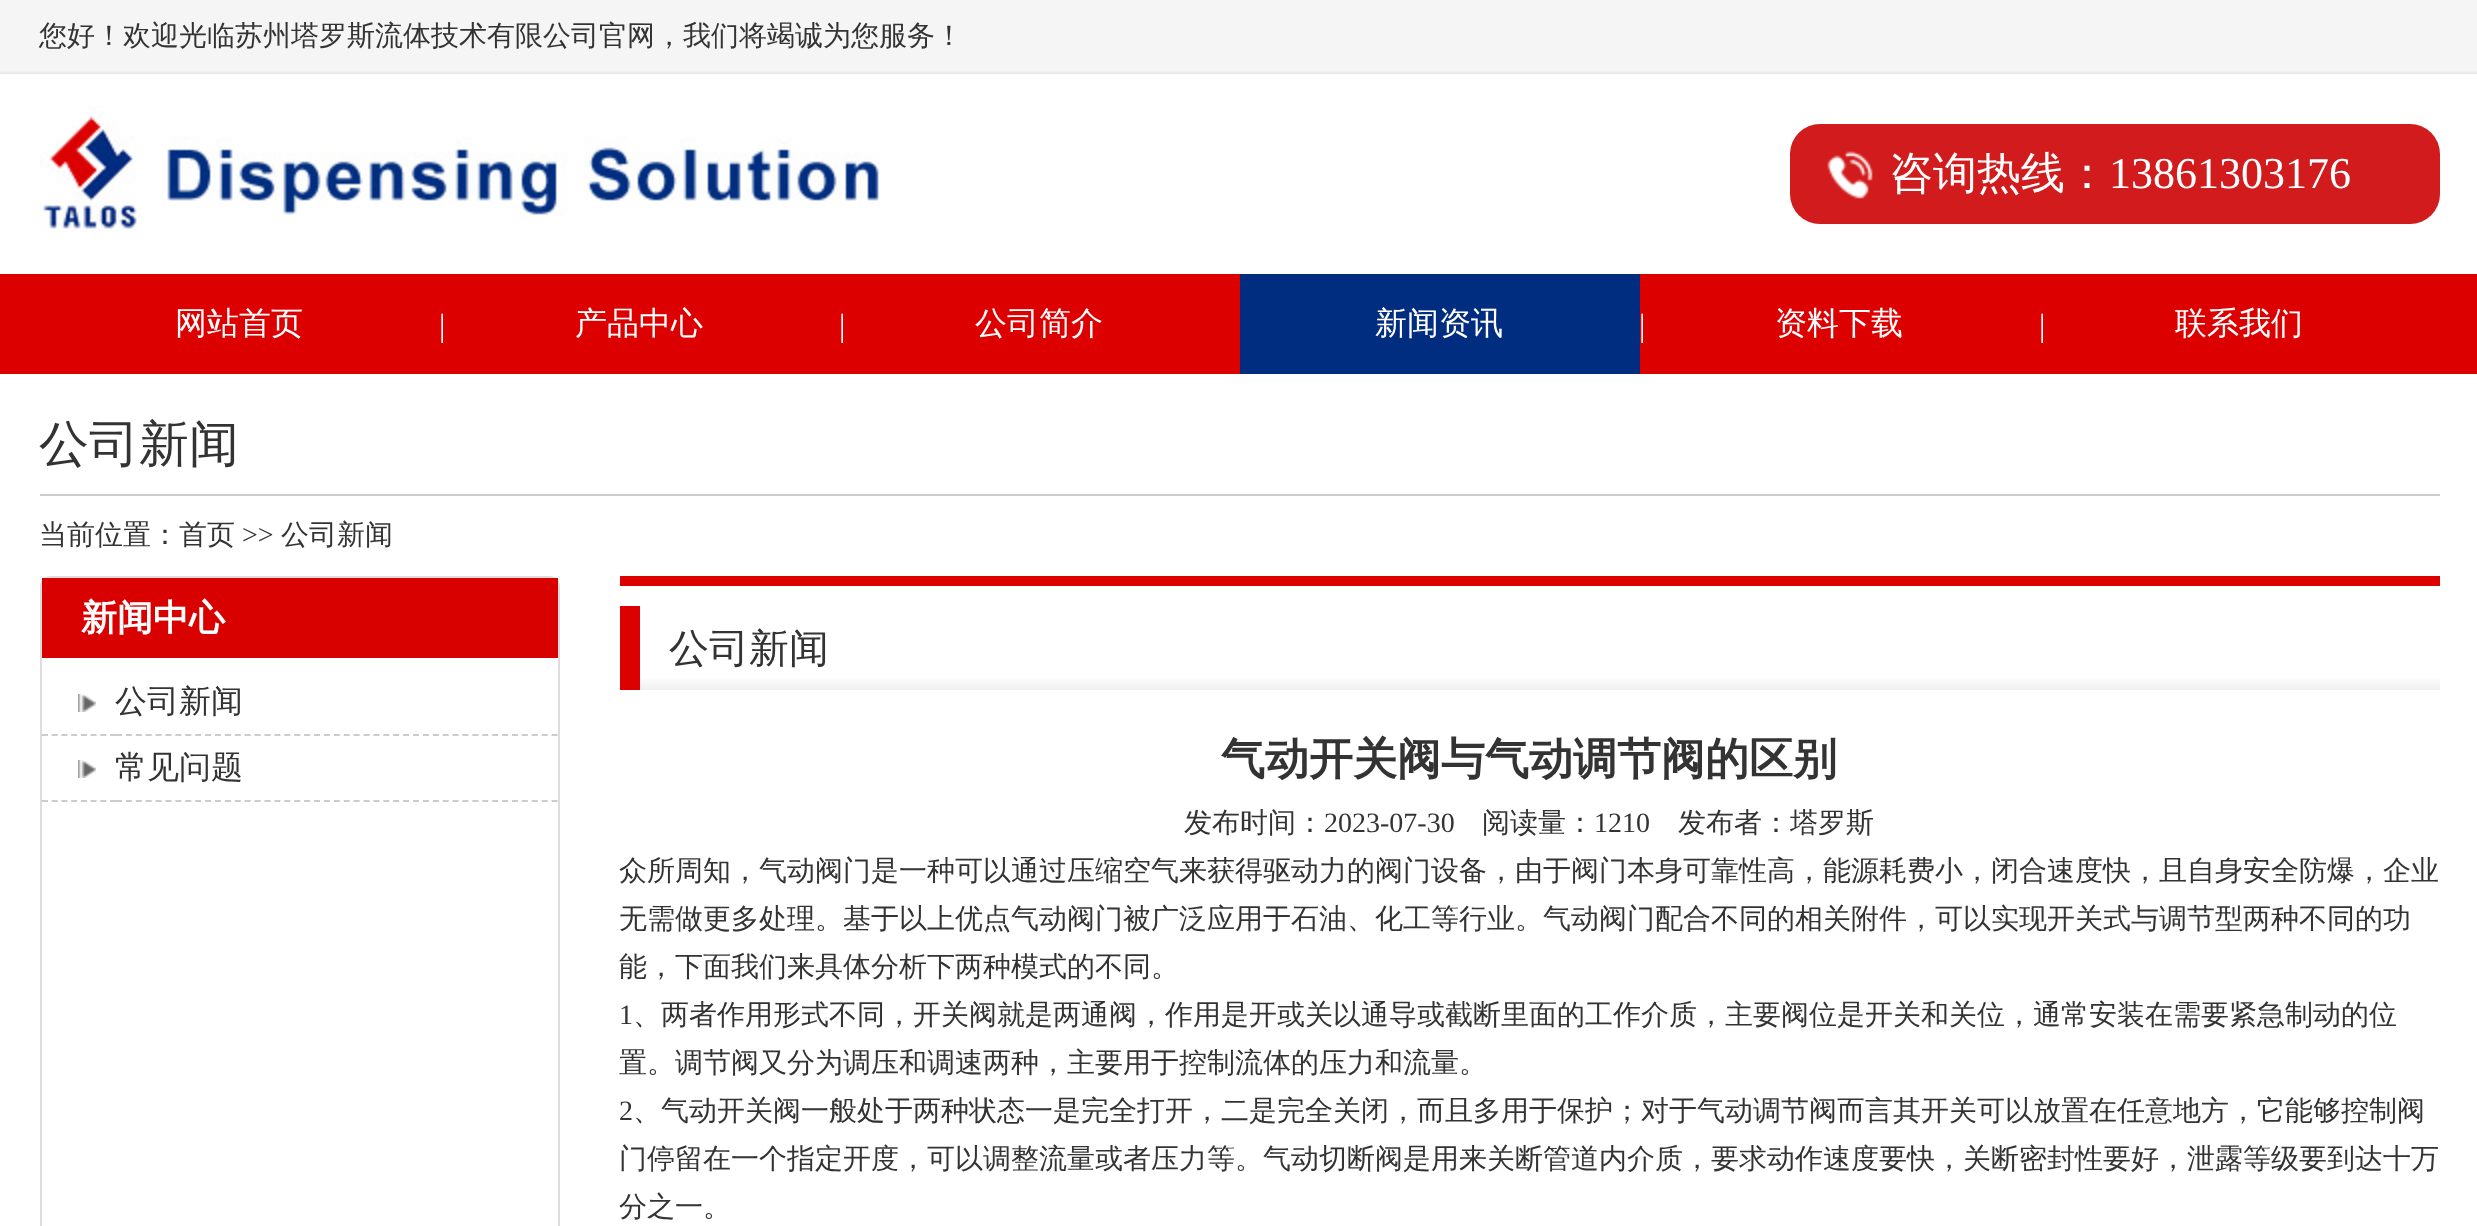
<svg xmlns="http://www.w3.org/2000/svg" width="2477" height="1226">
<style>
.a{font:500 28px WenQuanYi Zen Hei;fill:#333}
.b{font:500 44px WenQuanYi Zen Hei;fill:#fff}
.c{font:44px Liberation Serif;fill:#fff}
.d{font:500 32px WenQuanYi Zen Hei;fill:#fff}
.e{font:32px Liberation Serif;fill:#fff}
.f{font:500 50px WenQuanYi Zen Hei;fill:#333}
.g{font:28px Liberation Serif;fill:#333}
.h{font:bold 36px WenQuanYi Zen Hei;fill:#fff}
.i{font:500 32px WenQuanYi Zen Hei;fill:#333}
.j{font:500 40px WenQuanYi Zen Hei;fill:#333}
.k{font:bold 44px WenQuanYi Zen Hei;fill:#333}
</style>
<rect width="100%" height="100%" fill="#fff"/>
<image href="1.png" x="0" y="0" width="2477" height="74"/>
<image href="2.png" x="40" y="106" width="840" height="126"/>
<rect fill="#d21b1d" x="1790" y="124" width="650" height="100" rx="30"/>
<image href="3.png" x="1827" y="151" width="46" height="48"/>
<path fill="#dc0000" d="M0 274h2477v100H0z"/>
<path fill="#002d80" d="M1240 274h400v100H1240z"/>
<path fill="#ccc" d="M40 494h2400v2H40z"/>
<rect fill="none" stroke="#ddd" stroke-width="2" x="41" y="577" width="518" height="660" rx="9"/>
<path fill="#d90000" d="M42 578h516v80H42z"/>
<path fill="none" stroke="#ccc" stroke-width="2" stroke-dasharray="6 3.72" d="M42 735h74"/>
<image href="4.png" x="78" y="694" width="18" height="18"/>
<path fill="none" stroke="#ccc" stroke-width="2" stroke-dasharray="6 3.9" d="M116 735h442"/>
<path fill="none" stroke="#ccc" stroke-width="2" stroke-dasharray="6 3.72" d="M42 801h74"/>
<image href="4.png" x="78" y="760" width="18" height="18"/>
<path fill="none" stroke="#ccc" stroke-width="2" stroke-dasharray="6 3.9" d="M116 801h442"/>
<path fill="#dc0000" d="M620 576h1820v10H620z"/>
<image href="5.png" x="640" y="679" width="1800" height="11"/>
<path fill="#dc0000" d="M620 606h20v84H620z"/>
<text class="a" x="39" y="45">您好！欢迎光临苏州塔罗斯流体技术有限公司官网，我们将竭诚为您服务！</text>
<text class="b" x="1889" y="188">咨询热线：</text>
<text class="c" x="2109" y="188">13861303176</text>
<text class="d" x="175" y="334">网站首页</text>
<text class="e" x="439" y="336">|</text>
<text class="d" x="575" y="334">产品中心</text>
<text class="e" x="839" y="336">|</text>
<text class="d" x="975" y="334">公司简介</text>
<text class="d" x="1375" y="334">新闻资讯</text>
<text class="e" x="1639" y="336">|</text>
<text class="d" x="1775" y="334">资料下载</text>
<text class="e" x="2039" y="336">|</text>
<text class="d" x="2175" y="334">联系我们</text>
<text class="f" x="39" y="461">公司新闻</text>
<text class="a" x="39" y="544">当前位置：首页</text>
<text class="g" x="242" y="544">&gt;&gt;</text>
<text class="a" x="281" y="544">公司新闻</text>
<text class="h" x="81" y="630">新闻中心</text>
<text class="i" x="115" y="712">公司新闻</text>
<text class="i" x="115" y="778">常见问题</text>
<text class="j" x="669" y="662">公司新闻</text>
<text class="k" x="1221" y="774">气动开关阀与气动调节阀的区别</text>
<text class="a" x="1184" y="832">发布时间：</text>
<text class="g" x="1324" y="832">2023-07-30</text>
<text class="a" x="1482" y="832">阅读量：</text>
<text class="g" x="1594" y="832">1210</text>
<text class="a" x="1678" y="832">发布者：塔罗斯</text>
<text class="a" x="619" y="880">众所周知，气动阀门是一种可以通过压缩空气来获得驱动力的阀门设备，由于阀门本身可靠性高，能源耗费小，闭合速度快，且自身安全防爆，企业</text>
<text class="a" x="619" y="928">无需做更多处理。基于以上优点气动阀门被广泛应用于石油、化工等行业。气动阀门配合不同的相关附件，可以实现开关式与调节型两种不同的功</text>
<text class="a" x="619" y="976">能，下面我们来具体分析下两种模式的不同。</text>
<text class="g" x="619" y="1024">1</text>
<text class="a" x="633" y="1024">、两者作用形式不同，开关阀就是两通阀，作用是开或关以通导或截断里面的工作介质，主要阀位是开关和关位，通常安装在需要紧急制动的位</text>
<text class="a" x="619" y="1072">置。调节阀又分为调压和调速两种，主要用于控制流体的压力和流量。</text>
<text class="g" x="619" y="1120">2</text>
<text class="a" x="633" y="1120">、气动开关阀一般处于两种状态一是完全打开，二是完全关闭，而且多用于保护；对于气动调节阀而言其开关可以放置在任意地方，它能够控制阀</text>
<text class="a" x="619" y="1168">门停留在一个指定开度，可以调整流量或者压力等。气动切断阀是用来关断管道内介质，要求动作速度要快，关断密封性要好，泄露等级要到达十万</text>
<text class="a" x="619" y="1216">分之一。</text>
</svg>
